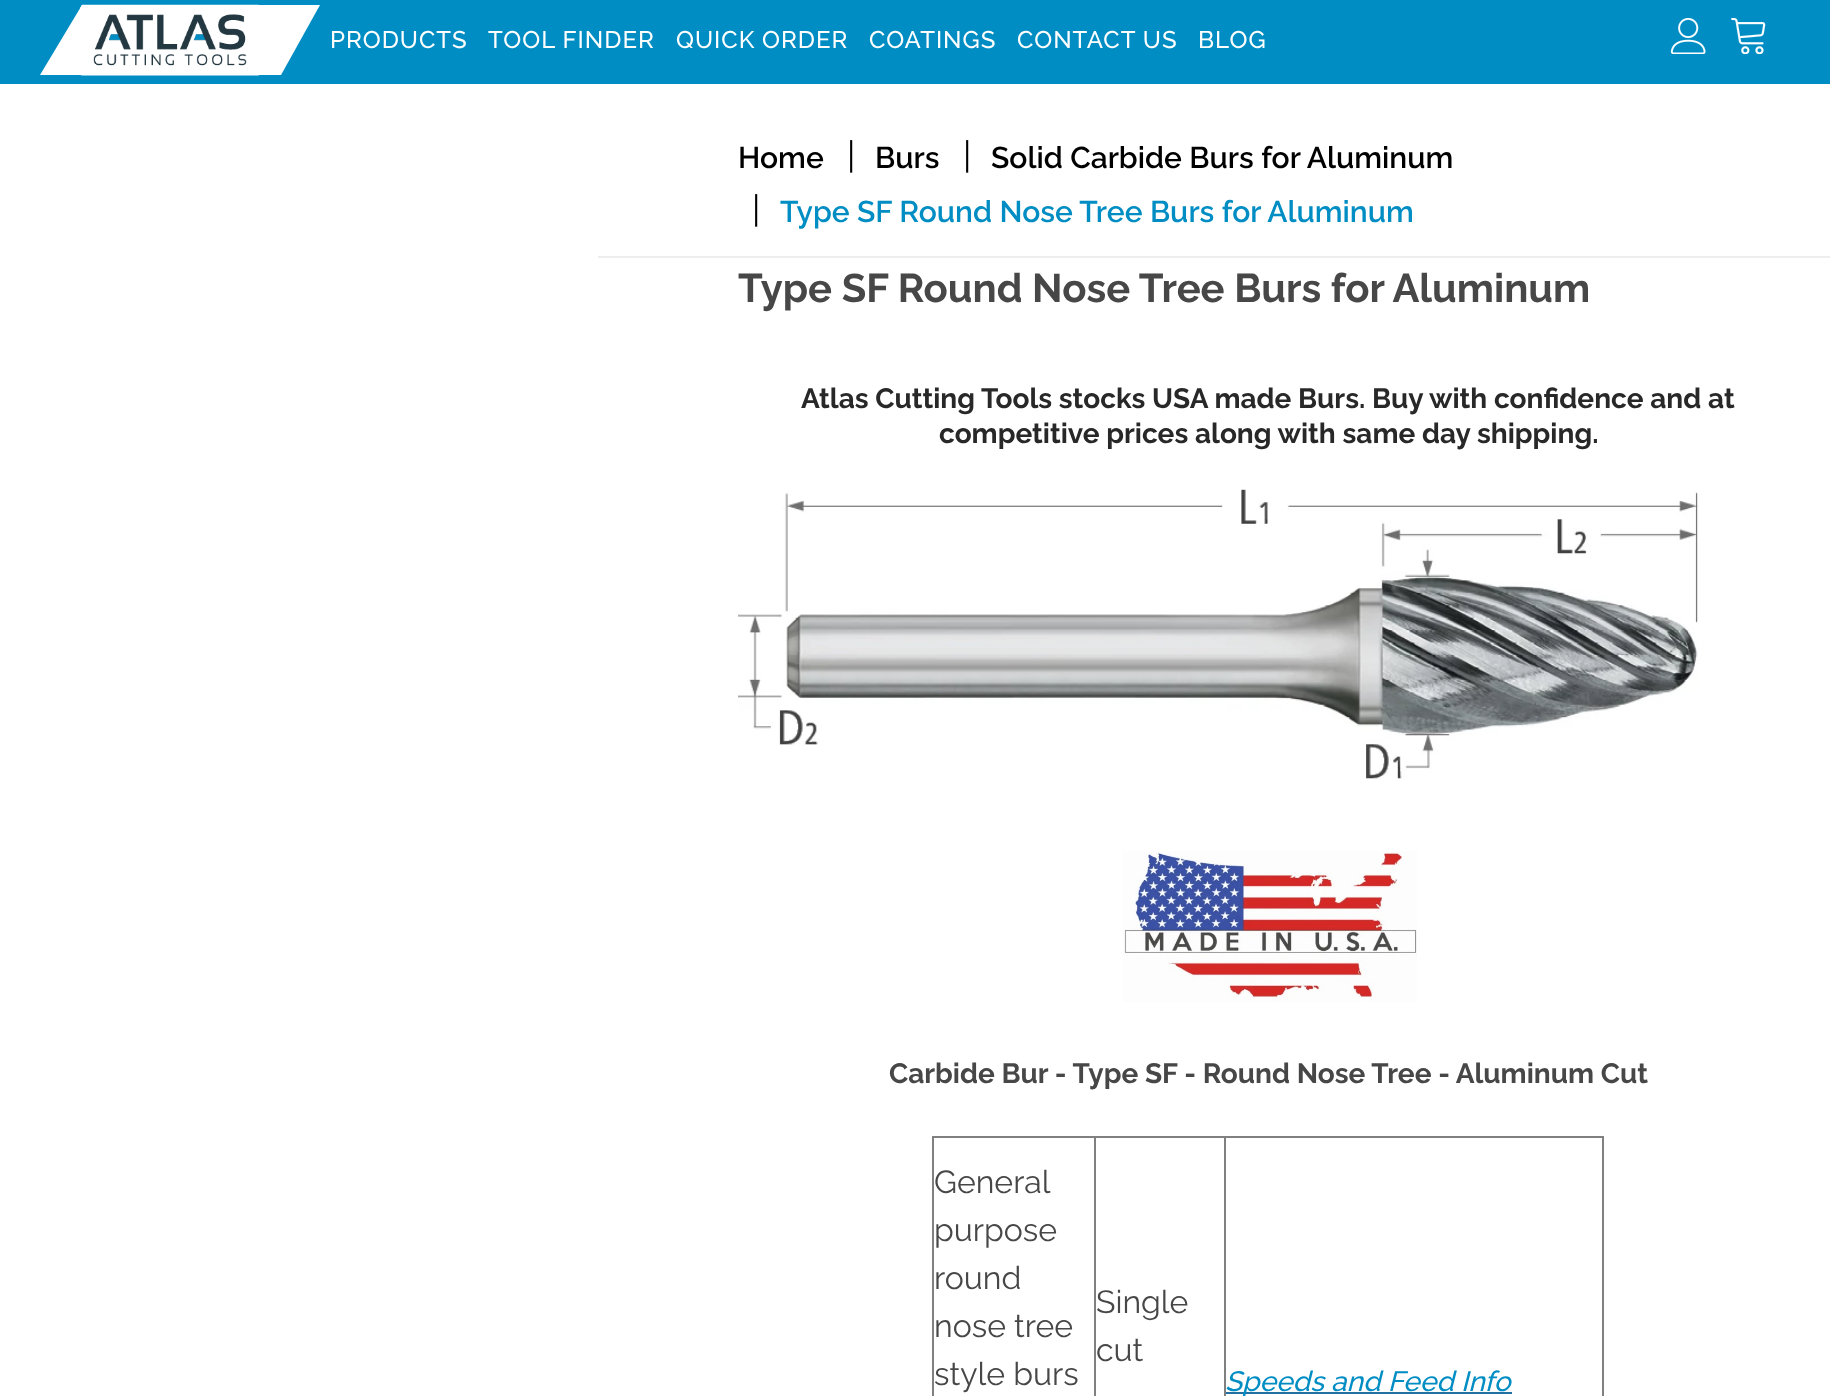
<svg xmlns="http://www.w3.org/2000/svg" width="1830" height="1396">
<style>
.a{font:500 24px Raleway;letter-spacing:1px;fill:#fff}
.b{font:600 30px Raleway;fill:#000}
.c{font:36px Raleway;fill:#000}
.d{font:600 30px Raleway;fill:#008dc3}
.e{font:bold 40px Raleway;fill:#474747}
.f{font:bold 28px Raleway;fill:#282828}
.g{font:bold 28px Raleway;fill:#474747}
.h{font:32px Raleway;fill:#474747}
.i{font:italic 500 28px Raleway;fill:#008dc3}
</style>
<rect width="100%" height="100%" fill="#fff"/>
<path fill="#008dc3" d="M0 0h1830v84H0z"/>
<path fill="#fff" d="M82 5l-42 70h241l39-70z"/>
<image href="1.png" x="80" y="4" width="180" height="72"/>
<image href="2.png" x="1670" y="18" width="36" height="36"/>
<image href="3.png" x="1731" y="18" width="35" height="36"/>
<path fill="#eee" d="M598 256h1232v2H598z"/>
<image href="4.png" x="738" y="489" width="961" height="290"/>
<image href="5.png" x="1123" y="851" width="294" height="151"/>
<path fill="#808080" d="M932 1136h672v2H932z"/>
<path fill="#808080" d="M1602 1136h2v260H1602z"/>
<path fill="#808080" d="M932 1136h2v260H932z"/>
<path fill="#808080" d="M1094 1136h2v260H1094z"/>
<path fill="#808080" d="M1224 1136h2v260H1224z"/>
<path fill="#236fa1" d="M1226 1392h286v2H1226z"/>
<text class="a" x="330" y="48">PRODUCTS</text>
<text class="a" x="488" y="48">TOOL FINDER</text>
<text class="a" x="676" y="48">QUICK ORDER</text>
<text class="a" x="869" y="48">COATINGS</text>
<text class="a" x="1017" y="48">CONTACT US</text>
<text class="a" x="1198" y="48">BLOG</text>
<text class="b" x="738" y="168">Home</text>
<text class="c" x="847" y="168">|</text>
<text class="b" x="875" y="168">Burs</text>
<text class="c" x="963" y="168">|</text>
<text class="b" x="991" y="168">Solid Carbide Burs for Aluminum</text>
<text class="c" x="752" y="222">|</text>
<text class="d" x="780" y="222">Type SF Round Nose Tree Burs for Aluminum</text>
<text class="e" x="738" y="302">Type SF Round Nose Tree Burs for Aluminum</text>
<text class="f" x="801" y="408">Atlas Cutting Tools stocks USA made Burs. Buy with confidence and at</text>
<text class="f" x="939" y="443">competitive prices along with same day shipping.</text>
<text class="g" x="889" y="1083">Carbide Bur - Type SF - Round Nose Tree - Aluminum Cut</text>
<text class="h" x="934" y="1193">General</text>
<text class="h" x="934" y="1241">purpose</text>
<text class="h" x="934" y="1289">round</text>
<text class="h" x="934" y="1337">nose tree</text>
<text class="h" x="934" y="1385">style burs</text>
<text class="h" x="1096" y="1313">Single</text>
<text class="h" x="1096" y="1361">cut</text>
<text class="i" x="1225" y="1391">Speeds and Feed Info</text>
</svg>
